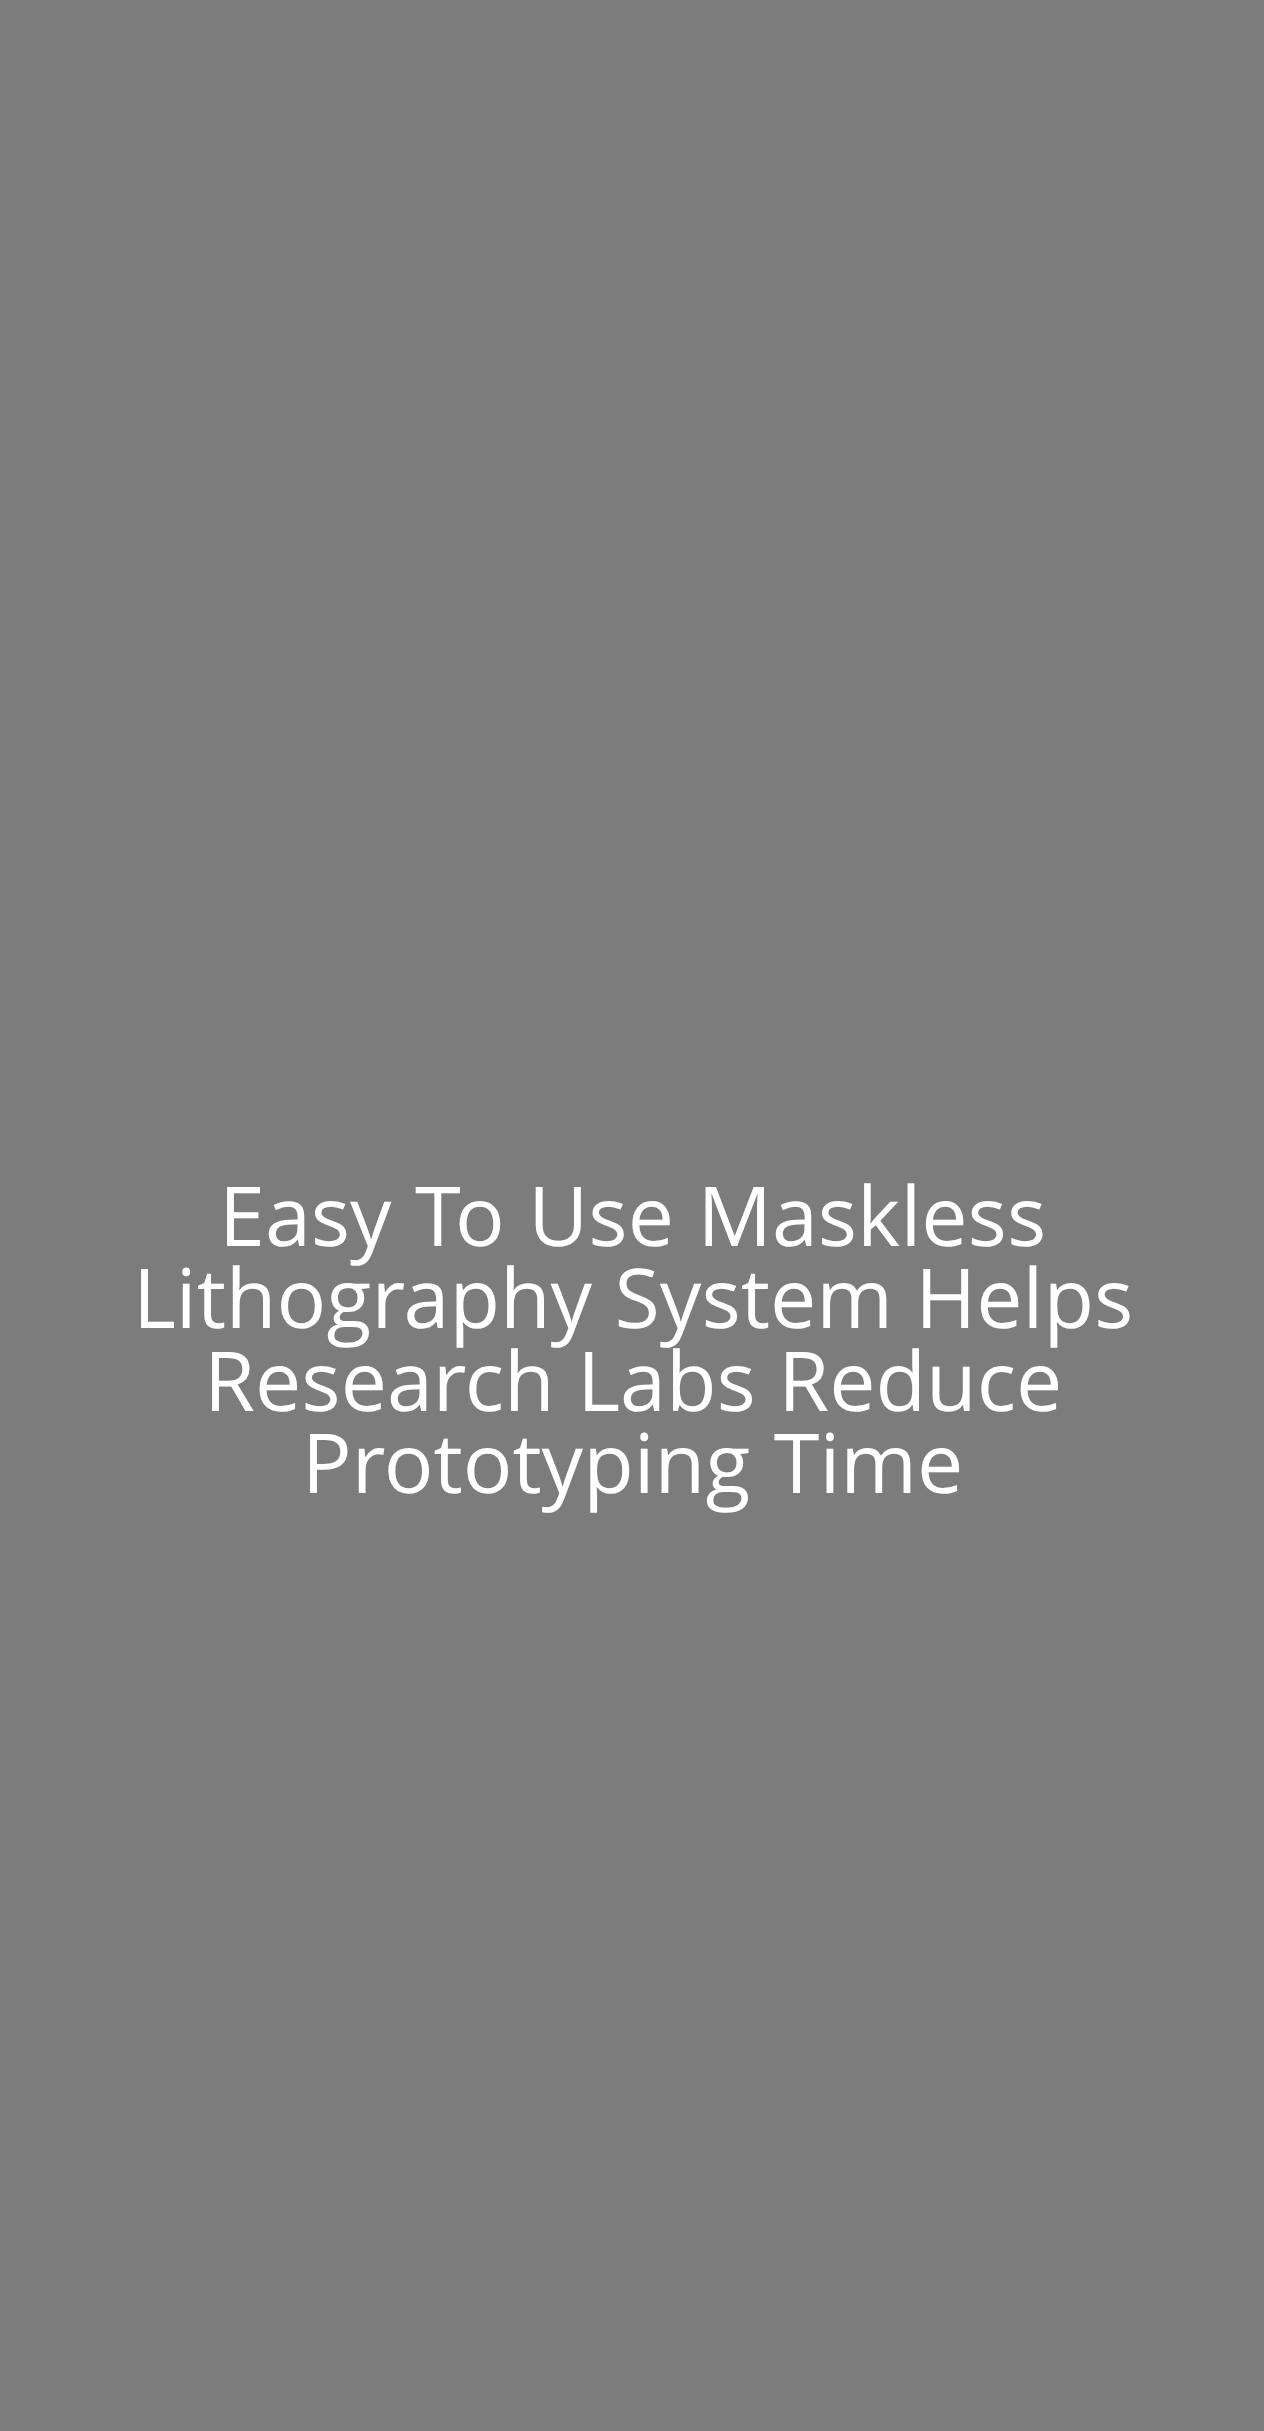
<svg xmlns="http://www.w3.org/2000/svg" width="1264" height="2431">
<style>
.a{font:82.5px Open Sans;fill:#fff}
</style>
<rect width="100%" height="100%" fill="#7c7c7c"/>
<text class="a" x="219" y="1246" word-spacing="2">Easy To Use Maskless</text>
<text class="a" x="133" y="1328" word-spacing="1">Lithography System Helps</text>
<text class="a" x="204" y="1411" word-spacing="1">Research Labs Reduce</text>
<text class="a" x="302" y="1493" word-spacing="2">Prototyping Time</text>
</svg>
